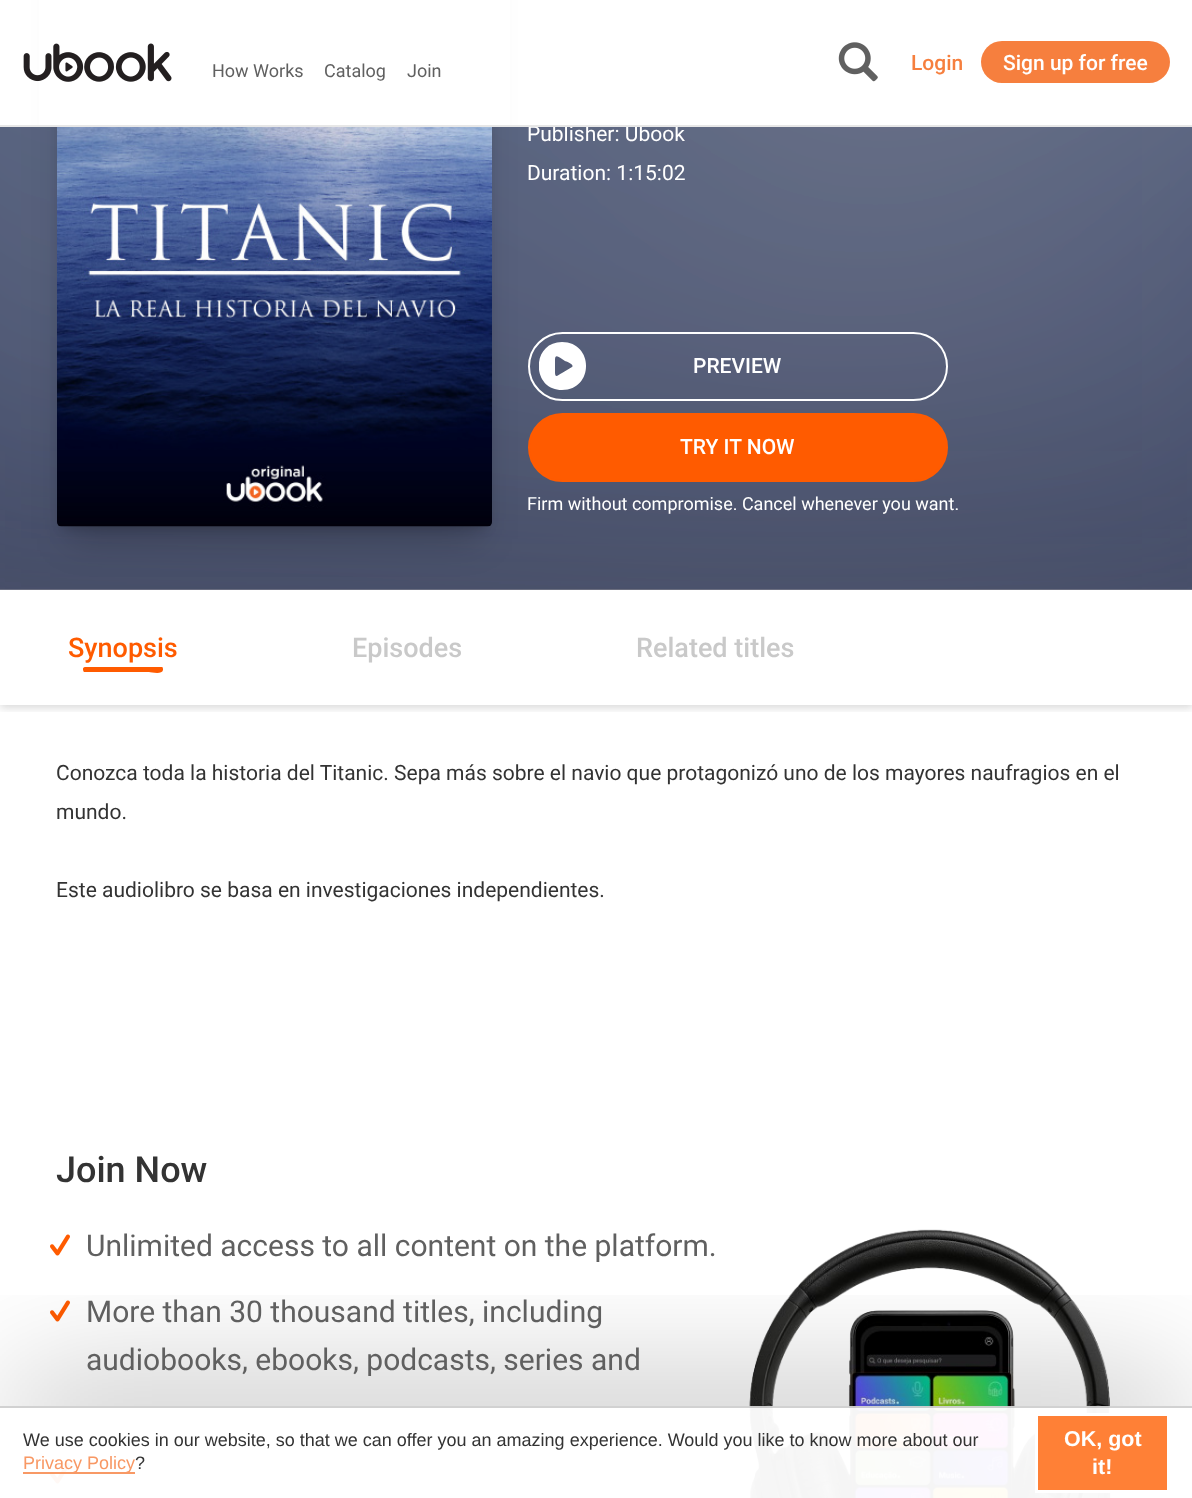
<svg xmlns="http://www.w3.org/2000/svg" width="1192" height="1498">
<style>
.a{font:18px Roboto;fill:#606060}
.b{font:500 21px Roboto;fill:#f67f3e}
.c{font:500 21px Roboto;fill:#fff}
.d{font:21px Roboto;fill:#fff}
.e{font:18px Roboto;fill:#fff}
.f{font:500 27px Roboto;fill:#ff5b00}
.g{font:500 27px Roboto;fill:#c9c9c9}
.h{font:21px Roboto;fill:#333}
.i{font:500 36px Roboto;fill:#333}
.j{font:30px Roboto;fill:#606060}
.k{font:18px Liberation Sans;fill:#333}
.l{font:18px Liberation Sans;fill:#f89864}
.m{font:bold 21.5px Liberation Sans;fill:#fff}
</style>
<defs>
<clipPath id="clip1"><path d="M539 342h48v48H539z"/></clipPath>
<clipPath id="clip2"><path d="M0 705h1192v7H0z"/></clipPath>
<clipPath id="clip3"><path d="M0 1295h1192v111H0z"/></clipPath>
</defs>
<rect width="100%" height="100%" fill="#fff"/>
<path fill="#8b8b96" d="M0 127h1192v463H0z"/>
<image href="4.png" x="0" y="127" width="1192" height="463"/>
<path fill="#00000033" filter="blur(6px)" d="M63 -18h423v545H63z"/>
<rect fill="none" stroke="#fff" stroke-width="2" x="529" y="333" width="418" height="67" rx="33.5"/>
<rect fill="#ff5b00" stroke="#ff5b00" stroke-width="2" x="529" y="414" width="418" height="67" rx="33.5"/>
<path fill="#00000033" filter="blur(18px)" d="M69 -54h411v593H69z"/>
<path fill="#fff" d="M39 0h471v125H39z"/>
<image href="1.png" x="23" y="43" width="149" height="39"/>
<image href="2.png" x="838" y="42" width="40" height="40"/>
<rect fill="#f67f3e" x="981" y="41" width="189" height="42" rx="21"/>
<image href="3.png" x="57" y="127" width="435" height="400"/>
<g clip-path="url(#clip1)">
<path fill="#fff" d="M562 342c-31 0-31 48 0 48c32 0 32-48 0-48zm10 25l-10 6c-5 3-7 5-7-1v-12c0-7 4-3 10 1c1 0 10 4 7 6z"/>
</g>
<g clip-path="url(#clip2)">
<path fill="#00000026" filter="blur(4px)" d="M0 593h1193v115H0z"/>
</g>
<path fill="#ff5b00" d="M85 667h77c1 0 1 2 1 3c-1 5-12 2-14 2h-65c-1-1-2-5 1-5z"/>
<image href="5.png" x="50" y="1234" width="20" height="22"/>
<image href="5.png" x="50" y="1300" width="20" height="22"/>
<image href="5.png" x="50" y="1462" width="20" height="22"/>
<image href="6.png" x="749" y="1229" width="362" height="269"/>
<g clip-path="url(#clip3)">
<path fill="#0000004d" filter="blur(64px)" d="M12 1388h1169v69H12z"/>
</g>
<path fill="#fffffff5" d="M50 1406h1061v92H50z"/>
<path fill="#0000002e" d="M0 1406h1192v2H0z"/>
<path fill="#f67f3ecc" d="M23 1472h112v2H23z"/>
<path fill="#ff8036" stroke="#fff" stroke-width="3" d="M1036.5 1414.5h132v77H1036.5z"/>
<text class="a" x="212" y="77">How Works</text>
<text class="a" x="324" y="77">Catalog</text>
<text class="a" x="407" y="77">Join</text>
<text class="b" x="911" y="70">Login</text>
<text class="c" x="1003" y="70">Sign up for free</text>
<text class="d" x="527" y="141">Publisher: Ubook</text>
<path fill="#e7e7e7" d="M0 125h1192v2H0z"/>
<text class="d" x="527" y="180">Duration: 1:15:02</text>
<text class="c" x="693" y="373">PREVIEW</text>
<text class="c" x="680" y="454">TRY IT NOW</text>
<text class="e" x="527" y="510">Firm without compromise. Cancel whenever you want.</text>
<text class="f" x="68" y="657">Synopsis</text>
<text class="g" x="352" y="657">Episodes</text>
<text class="g" x="636" y="657">Related titles</text>
<text class="h" x="56" y="780">Conozca toda la historia del Titanic. Sepa más sobre el navio que protagonizó uno de los mayores naufragios en el</text>
<text class="h" x="56" y="819">mundo.</text>
<text class="h" x="56" y="897">Este audiolibro se basa en investigaciones independientes.</text>
<text class="i" x="56" y="1182">Join Now</text>
<text class="j" x="86" y="1256">Unlimited access to all content on the platform.</text>
<text class="j" x="86" y="1322">More than 30 thousand titles, including</text>
<text class="j" x="86" y="1370">audiobooks, ebooks, podcasts, series and</text>
<text class="k" x="23" y="1446">We use cookies in our website, so that we can offer you an amazing experience. Would you like to know more about our</text>
<text class="l" x="23" y="1469">Privacy Policy</text>
<text class="k" x="135" y="1469">?</text>
<text class="m" x="1064" y="1446">OK, got</text>
<text class="m" x="1092" y="1474">it!</text>
</svg>
